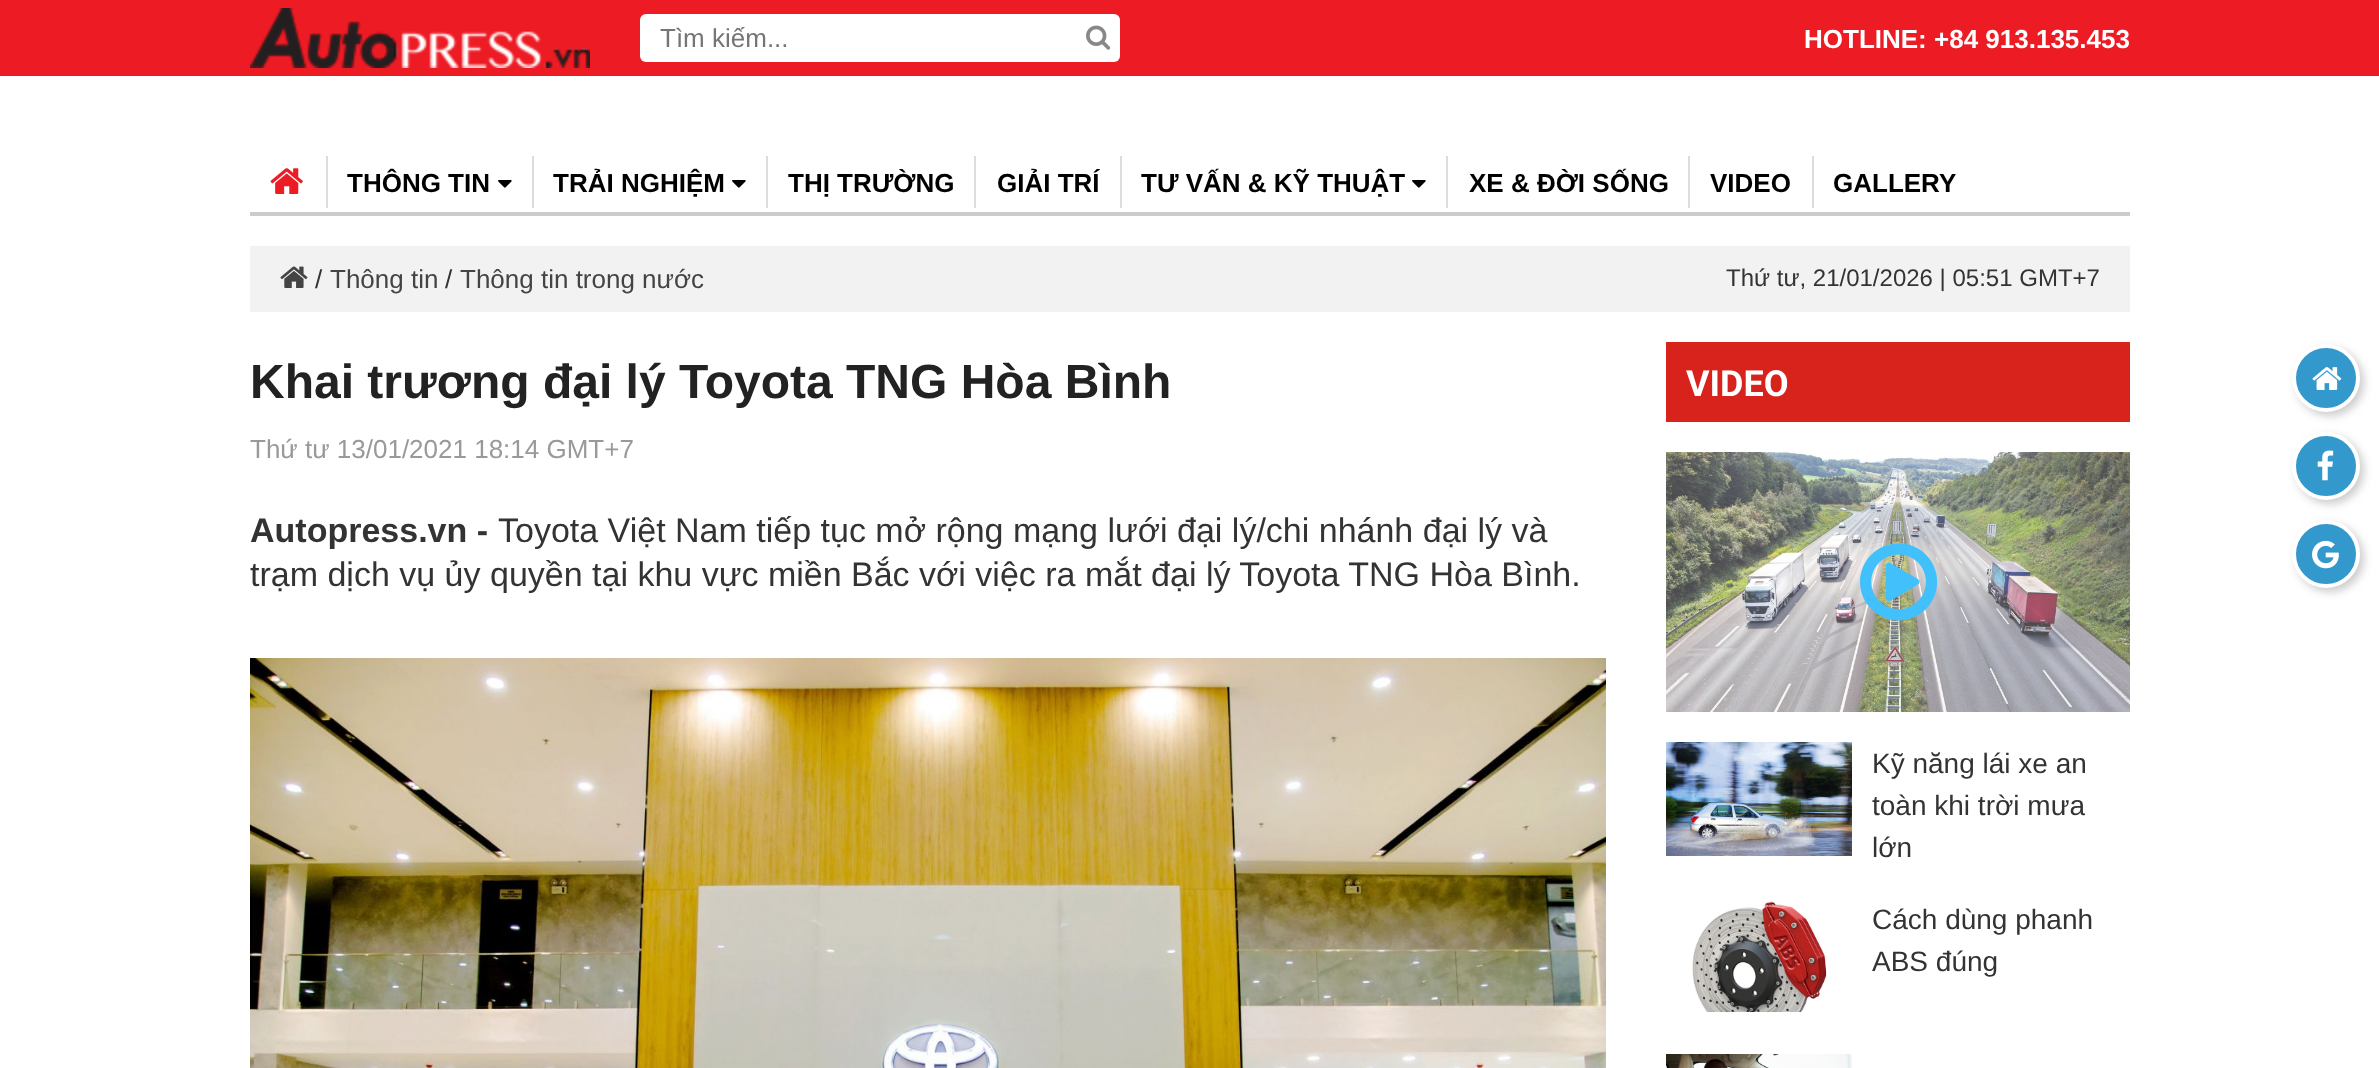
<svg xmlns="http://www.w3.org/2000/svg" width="2379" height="1068">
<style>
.a{font:26px Liberation Sans;fill:#757575}
.b{font:bold 26px Liberation Sans;fill:#fff}
.c{font:bold 26px Liberation Sans;fill:#000}
.d{font:26px Liberation Sans;fill:#333}
.e{font:26px Liberation Sans;fill:#444}
.f{font:24px Liberation Sans;fill:#333}
.g{font:bold 48px Liberation Sans;fill:#222}
.h{font:26px Liberation Sans;fill:#999}
.i{font:bold 34px Liberation Sans;fill:#333}
.j{font:34px Liberation Sans;fill:#333}
.k{font:bold 36px Roboto;fill:#fff}
.l{font:28px Liberation Sans;fill:#333}
</style>
<rect width="100%" height="100%" fill="#fff"/>
<path fill="#ed1b24" d="M0 0h2379v76H0z"/>
<image href="1.png" x="250" y="8" width="340" height="60"/>
<rect fill="#fff" x="640" y="14" width="480" height="48" rx="6"/>
<image href="2.png" x="1086" y="25" width="25" height="25"/>
<path fill="#ccc" d="M250 212h1880v4H250z"/>
<image href="3.png" x="270" y="168" width="33" height="26"/>
<path fill="#ddd" d="M326 156h2v52H326z"/>
<image href="4.png" x="498" y="180" width="14" height="8"/>
<path fill="#ddd" d="M532 156h2v52H532z"/>
<image href="4.png" x="732" y="180" width="14" height="8"/>
<path fill="#ddd" d="M766 156h2v52H766z"/>
<path fill="#ddd" d="M974 156h2v52H974z"/>
<path fill="#ddd" d="M1120 156h2v52H1120z"/>
<image href="4.png" x="1412" y="180" width="14" height="8"/>
<path fill="#ddd" d="M1446 156h2v52H1446z"/>
<path fill="#ddd" d="M1688 156h2v52H1688z"/>
<path fill="#ddd" d="M1812 156h2v52H1812z"/>
<path fill="#f2f2f2" d="M250 246h1880v66H250z"/>
<image href="5.png" x="280" y="266" width="28" height="22"/>
<image href="6.png" x="250" y="658" width="1356" height="410"/>
<path fill="#d8231c" d="M1666 342h464v80H1666z"/>
<image href="7.png" x="1666" y="452" width="464" height="260"/>
<image href="8.png" x="1860" y="543" width="78" height="78"/>
<image href="9.png" x="1666" y="742" width="186" height="114"/>
<image href="10.png" x="1692" y="900" width="135" height="112"/>
<image href="11.png" x="1666" y="1054" width="186" height="14"/>
<rect fill="#32323240" filter="blur(4px)" x="2296" y="348" width="68" height="68" rx="34"/>
<circle fill="#39c" stroke="#fff" stroke-width="4" cx="2326" cy="378" r="32"/>
<image href="12.png" x="2312" y="367" width="30" height="23"/>
<rect fill="#32323240" filter="blur(4px)" x="2296" y="436" width="68" height="68" rx="34"/>
<circle fill="#39c" stroke="#fff" stroke-width="4" cx="2326" cy="466" r="32"/>
<image href="13.png" x="2317" y="450" width="17" height="31"/>
<rect fill="#32323240" filter="blur(4px)" x="2296" y="524" width="68" height="68" rx="34"/>
<circle fill="#39c" stroke="#fff" stroke-width="4" cx="2326" cy="554" r="32"/>
<image href="14.png" x="2312" y="540" width="27" height="29"/>
<text class="a" x="660" y="47">Tìm kiếm...</text>
<text class="b" x="1804" y="48">HOTLINE: +84 913.135.453</text>
<text class="c" x="347" y="192">THÔNG TIN</text>
<text class="c" x="553" y="192">TRẢI NGHIỆM</text>
<text class="c" x="788" y="192">THỊ TRƯỜNG</text>
<text class="c" x="997" y="192">GIẢI TRÍ</text>
<text class="c" x="1141" y="192">TƯ VẤN &amp; KỸ THUẬT</text>
<text class="c" x="1469" y="192">XE &amp; ĐỜI SỐNG</text>
<text class="c" x="1710" y="192">VIDEO</text>
<text class="c" x="1833" y="192">GALLERY</text>
<text class="d" x="315" y="288">/</text>
<text class="e" x="330" y="288">Thông tin</text>
<text class="d" x="445" y="288">/</text>
<text class="e" x="460" y="288">Thông tin trong nước</text>
<text class="f" x="1726" y="286">Thứ tư, 21/01/2026 | 05:51 GMT+7</text>
<text class="g" x="250" y="398">Khai trương đại lý Toyota TNG Hòa Bình</text>
<text class="h" x="250" y="458">Thứ tư 13/01/2021 18:14 GMT+7</text>
<text class="i" x="250" y="542">Autopress.vn -</text>
<text class="j" x="498" y="542">Toyota Việt Nam tiếp tục mở rộng mạng lưới đại lý/chi nhánh đại lý và</text>
<text class="j" x="250" y="586">trạm dịch vụ ủy quyền tại khu vực miền Bắc với việc ra mắt đại lý Toyota TNG Hòa Bình.</text>
<text class="k" x="1686" y="396">VIDEO</text>
<text class="l" x="1872" y="773">Kỹ năng lái xe an</text>
<text class="l" x="1872" y="815">toàn khi trời mưa</text>
<text class="l" x="1872" y="857">lớn</text>
<text class="l" x="1872" y="929">Cách dùng phanh</text>
<text class="l" x="1872" y="971">ABS đúng</text>
</svg>
